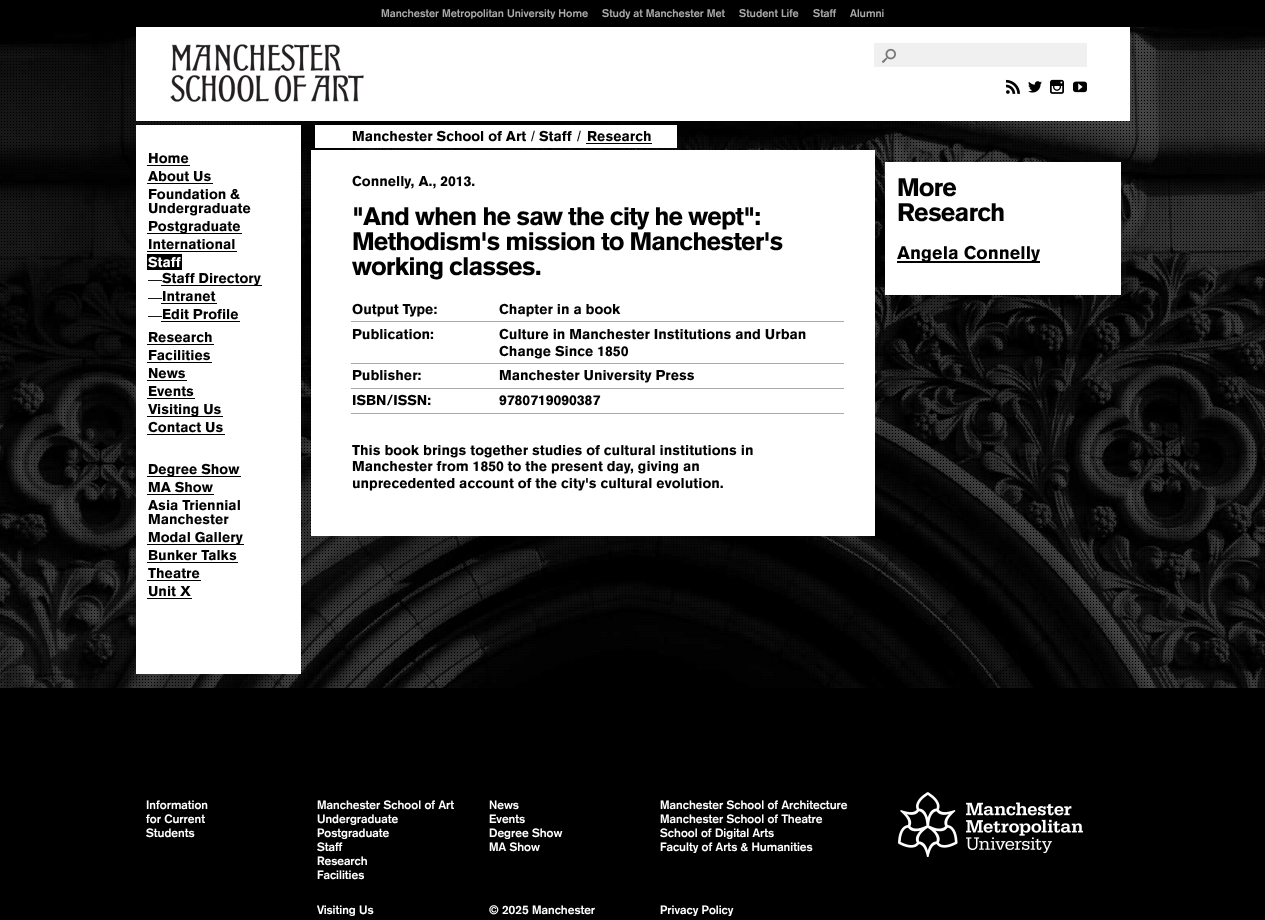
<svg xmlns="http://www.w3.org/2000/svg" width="1265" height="920">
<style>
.a{font:bold 11px 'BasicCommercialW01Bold';fill:#aaa}
.b{font:14px 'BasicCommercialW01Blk';fill:#000}
.c{font:14px 'BasicCommercialW01Blk';fill:#fff}
.d{font:14px Liberation Sans;fill:#000}
.e{font:25px 'BasicCommercialW01Blk';letter-spacing:-1px;fill:#000}
.f{font:18px 'BasicCommercialW01Blk';fill:#000}
.g{font:bold 12px 'BasicCommercialW01Bold';fill:#fff}
</style>
<rect width="100%" height="100%" fill="#fff"/>
<path fill="#000" d="M0 0h1265v27H0z"/>
<image href="8.png" x="0" y="27" width="1265" height="661"/>
<image href="9.png" x="1" y="28" width="1264" height="658"/>
<path fill="#fff" d="M136 27h994v94H136z"/>
<path fill="#f0f0f0" d="M874 43h213v24H874z"/>
<image href="1.png" x="882" y="48" width="14" height="15"/>
<image href="2.png" x="170" y="44" width="194" height="58"/>
<image href="3.png" x="1006" y="79" width="14" height="15"/>
<image href="4.png" x="1028" y="81" width="14" height="12"/>
<image href="5.png" x="1050" y="79" width="14" height="15"/>
<image href="6.png" x="1073" y="81" width="14" height="12"/>
<path fill="#fff" d="M136 125h165v549H136z"/>
<path fill="#000" d="M147 165h43v1H147z"/>
<path fill="#000" d="M147 183h66v1H147z"/>
<path fill="#000" d="M147 233h95v1H147z"/>
<path fill="#000" d="M147 251h90v1H147z"/>
<path fill="#000" d="M147 254h35v16H147z"/>
<path fill="#000" d="M161 285h101v1H161z"/>
<path fill="#000" d="M161 303h56v1H161z"/>
<path fill="#000" d="M161 321h79v1H161z"/>
<path fill="#000" d="M147 344h67v1H147z"/>
<path fill="#000" d="M147 362h65v1H147z"/>
<path fill="#000" d="M147 380h40v1H147z"/>
<path fill="#000" d="M147 398h48v1H147z"/>
<path fill="#000" d="M147 416h76v1H147z"/>
<path fill="#000" d="M147 434h78v1H147z"/>
<path fill="#000" d="M147 476h94v1H147z"/>
<path fill="#000" d="M147 494h67v1H147z"/>
<path fill="#000" d="M147 544h97v1H147z"/>
<path fill="#000" d="M147 562h91v1H147z"/>
<path fill="#000" d="M147 580h54v1H147z"/>
<path fill="#000" d="M147 598h45v1H147z"/>
<path fill="#fff" d="M315 125h362v23H315z"/>
<path fill="#000" d="M586 143h66v1H586z"/>
<path fill="#fff" d="M311 150h564v386H311z"/>
<path fill="#aaa" d="M351 321h493v1H351z"/>
<path fill="#aaa" d="M351 363h493v1H351z"/>
<path fill="#aaa" d="M351 388h493v1H351z"/>
<path fill="#aaa" d="M351 413h493v1H351z"/>
<path fill="#fff" d="M885 162h236v133H885z"/>
<path fill="#000" d="M897 261h143v2H897z"/>
<path fill="#000" d="M0 688h1265v232H0z"/>
<image href="7.png" x="898" y="792" width="185" height="65"/>
<text class="a" x="381" y="17">Manchester Metropolitan University Home</text>
<text class="a" x="602" y="17">Study at Manchester Met</text>
<text class="a" x="739" y="17">Student Life</text>
<text class="a" x="813" y="17">Staff</text>
<text class="a" x="850" y="17">Alumni</text>
<text class="b" x="148" y="163">Home</text>
<text class="b" x="148" y="181">About Us</text>
<text class="b" x="148" y="199">Foundation &amp;</text>
<text class="b" x="148" y="213">Undergraduate</text>
<text class="b" x="148" y="231">Postgraduate</text>
<text class="b" x="148" y="249">International</text>
<text class="c" x="148" y="267">Staff</text>
<text class="d" x="148" y="284">—</text>
<text class="b" x="162" y="283">Staff Directory</text>
<text class="d" x="148" y="302">—</text>
<text class="b" x="162" y="301">Intranet</text>
<text class="d" x="148" y="320">—</text>
<text class="b" x="162" y="319">Edit Profile</text>
<text class="b" x="148" y="342">Research</text>
<text class="b" x="148" y="360">Facilities</text>
<text class="b" x="148" y="378">News</text>
<text class="b" x="148" y="396">Events</text>
<text class="b" x="148" y="414">Visiting Us</text>
<text class="b" x="148" y="432">Contact Us</text>
<text class="b" x="148" y="474">Degree Show</text>
<text class="b" x="148" y="492">MA Show</text>
<text class="b" x="148" y="510">Asia Triennial</text>
<text class="b" x="148" y="524">Manchester</text>
<text class="b" x="148" y="542">Modal Gallery</text>
<text class="b" x="148" y="560">Bunker Talks</text>
<text class="b" x="148" y="578">Theatre</text>
<text class="b" x="148" y="596">Unit X</text>
<text class="b" x="352" y="141">Manchester School of Art</text>
<text class="d" x="531" y="141">/</text>
<text class="b" x="539" y="141">Staff</text>
<text class="d" x="577" y="141">/</text>
<text class="b" x="587" y="141">Research</text>
<text class="b" x="352" y="186">Connelly, A., 2013.</text>
<text class="e" x="352" y="225">"And when he saw the city he wept":</text>
<text class="e" x="352" y="250">Methodism's mission to Manchester's</text>
<text class="e" x="352" y="275">working classes.</text>
<text class="b" x="352" y="314">Output Type:</text>
<text class="b" x="499" y="314">Chapter in a book</text>
<text class="b" x="352" y="339">Publication:</text>
<text class="b" x="499" y="339">Culture in Manchester Institutions and Urban</text>
<text class="b" x="499" y="356">Change Since 1850</text>
<text class="b" x="352" y="380">Publisher:</text>
<text class="b" x="499" y="380">Manchester University Press</text>
<text class="b" x="352" y="405">ISBN/ISSN:</text>
<text class="b" x="499" y="405">9780719090387</text>
<text class="b" x="352" y="455">This book brings together studies of cultural institutions in</text>
<text class="b" x="352" y="471">Manchester from 1850 to the present day, giving an</text>
<text class="b" x="352" y="488">unprecedented account of the city's cultural evolution.</text>
<text class="e" x="897" y="196">More</text>
<text class="e" x="897" y="221">Research</text>
<text class="f" x="897" y="259">Angela Connelly</text>
<text class="g" x="146" y="809">Information</text>
<text class="g" x="146" y="823">for Current</text>
<text class="g" x="146" y="837">Students</text>
<text class="g" x="317" y="809">Manchester School of Art</text>
<text class="g" x="317" y="823">Undergraduate</text>
<text class="g" x="317" y="837">Postgraduate</text>
<text class="g" x="317" y="851">Staff</text>
<text class="g" x="317" y="865">Research</text>
<text class="g" x="317" y="879">Facilities</text>
<text class="g" x="489" y="809">News</text>
<text class="g" x="489" y="823">Events</text>
<text class="g" x="489" y="837">Degree Show</text>
<text class="g" x="489" y="851">MA Show</text>
<text class="g" x="660" y="809">Manchester School of Architecture</text>
<text class="g" x="660" y="823">Manchester School of Theatre</text>
<text class="g" x="660" y="837">School of Digital Arts</text>
<text class="g" x="660" y="851">Faculty of Arts &amp; Humanities</text>
<text class="g" x="317" y="914">Visiting Us</text>
<text class="g" x="489" y="914">© 2025 Manchester</text>
<text class="g" x="660" y="914">Privacy Policy</text>
</svg>
